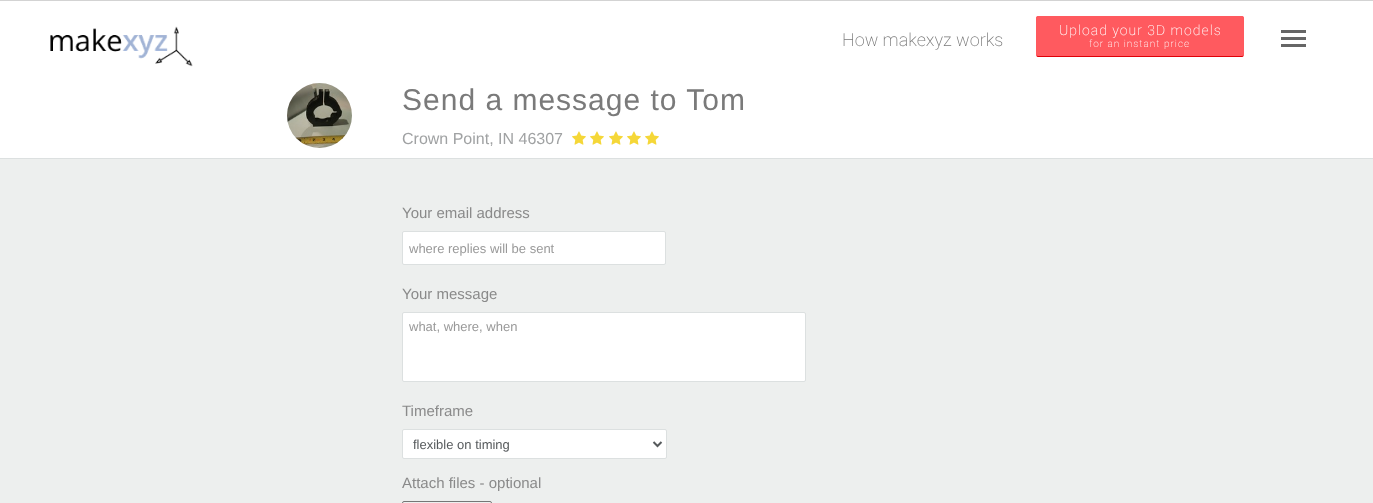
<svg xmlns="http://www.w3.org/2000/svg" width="1373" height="503">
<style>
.a{font:200 18px Roboto;fill:#7a7a7a}
.b{font:200 14px Roboto;letter-spacing:1px;fill:#fff}
.c{font:200 10px Roboto;letter-spacing:1px;fill:#fff}
.d{font:30px Liberation Sans;letter-spacing:1px;fill:#7a7a7a}
.e{font:16px Liberation Sans;fill:#a0a2a3}
.f{font:15px Liberation Sans;fill:#8a8a8a}
.g{font:13px Liberation Sans;fill:#999}
.h{font:13px Liberation Sans;fill:#565a5c}
</style>
<defs>
<clipPath id="clip1"><path d="M1036 16h208v45H1036z"/></clipPath>
</defs>
<rect width="100%" height="100%" fill="#edefee"/>
<path fill="#d3d3d3" d="M0 0h1373v1H0z"/>
<path fill="#fff" d="M0 1h1373v157H0z"/>
<image href="1.png" x="50" y="26" width="143" height="41"/>
<rect fill="#ff5a5f" x="1036" y="16" width="208" height="41" rx="2"/>
<path fill="none" stroke="#e00007" d="M1243 56l-1 .5h-204l-1-.5"/>
<g clip-path="url(#clip1)">
<path fill="none" stroke="#ff5a5f" d="M1037 56c-1.5-1.5-.5-17-.5-19.5v-12.5c0-2.5-1-7.5 1.5-7.5h204c2.5 0 1.5 5 1.5 7.5v12.5c0 2.5 1 18-.5 19.5"/>
</g>
<path fill="#666" d="M1281 30h25v3H1281z"/>
<path fill="#666" d="M1281 37h25v3H1281z"/>
<path fill="#666" d="M1281 44h25v3H1281z"/>
<path fill="#dce0e0" d="M0 158h1373v1H0z"/>
<image href="2.png" x="287" y="83" width="65" height="65"/>
<image href="3.png" x="572" y="131" width="14" height="14"/>
<image href="3.png" x="590" y="131" width="14" height="14"/>
<image href="3.png" x="609" y="131" width="14" height="14"/>
<image href="3.png" x="627" y="131" width="14" height="14"/>
<image href="3.png" x="645" y="131" width="14" height="14"/>
<rect fill="#fff" stroke="#dce0e0" x="402.5" y="231.5" width="263" height="33" rx="1.5"/>
<rect fill="#fff" stroke="#dce0e0" x="402.5" y="312.5" width="403" height="69" rx="1.5"/>
<rect fill="#fff" stroke="#dce0e0" x="402.5" y="429.5" width="264" height="29" rx="1.5"/>
<path fill="none" stroke="#565a5c" stroke-width="2" d="M653.5 442l4 4l4-4"/>
<rect fill="none" stroke="#767676" x="402.5" y="501.5" width="89" height="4" rx="1.5"/>
<text class="a" x="842" y="46">How makexyz works</text>
<text class="b" x="1059" y="35">Upload your 3D models</text>
<text class="c" x="1089" y="47">for an instant price</text>
<text class="d" x="402" y="110">Send a message to Tom</text>
<text class="e" x="402" y="144">Crown Point, IN 46307</text>
<text class="f" x="402" y="218">Your email address</text>
<text class="g" x="409" y="253">where replies will be sent</text>
<text class="f" x="402" y="299">Your message</text>
<text class="g" x="409" y="331">what, where, when</text>
<text class="f" x="402" y="416">Timeframe</text>
<text class="h" x="413" y="449">flexible on timing</text>
<text class="f" x="402" y="488">Attach files - optional</text>
</svg>
